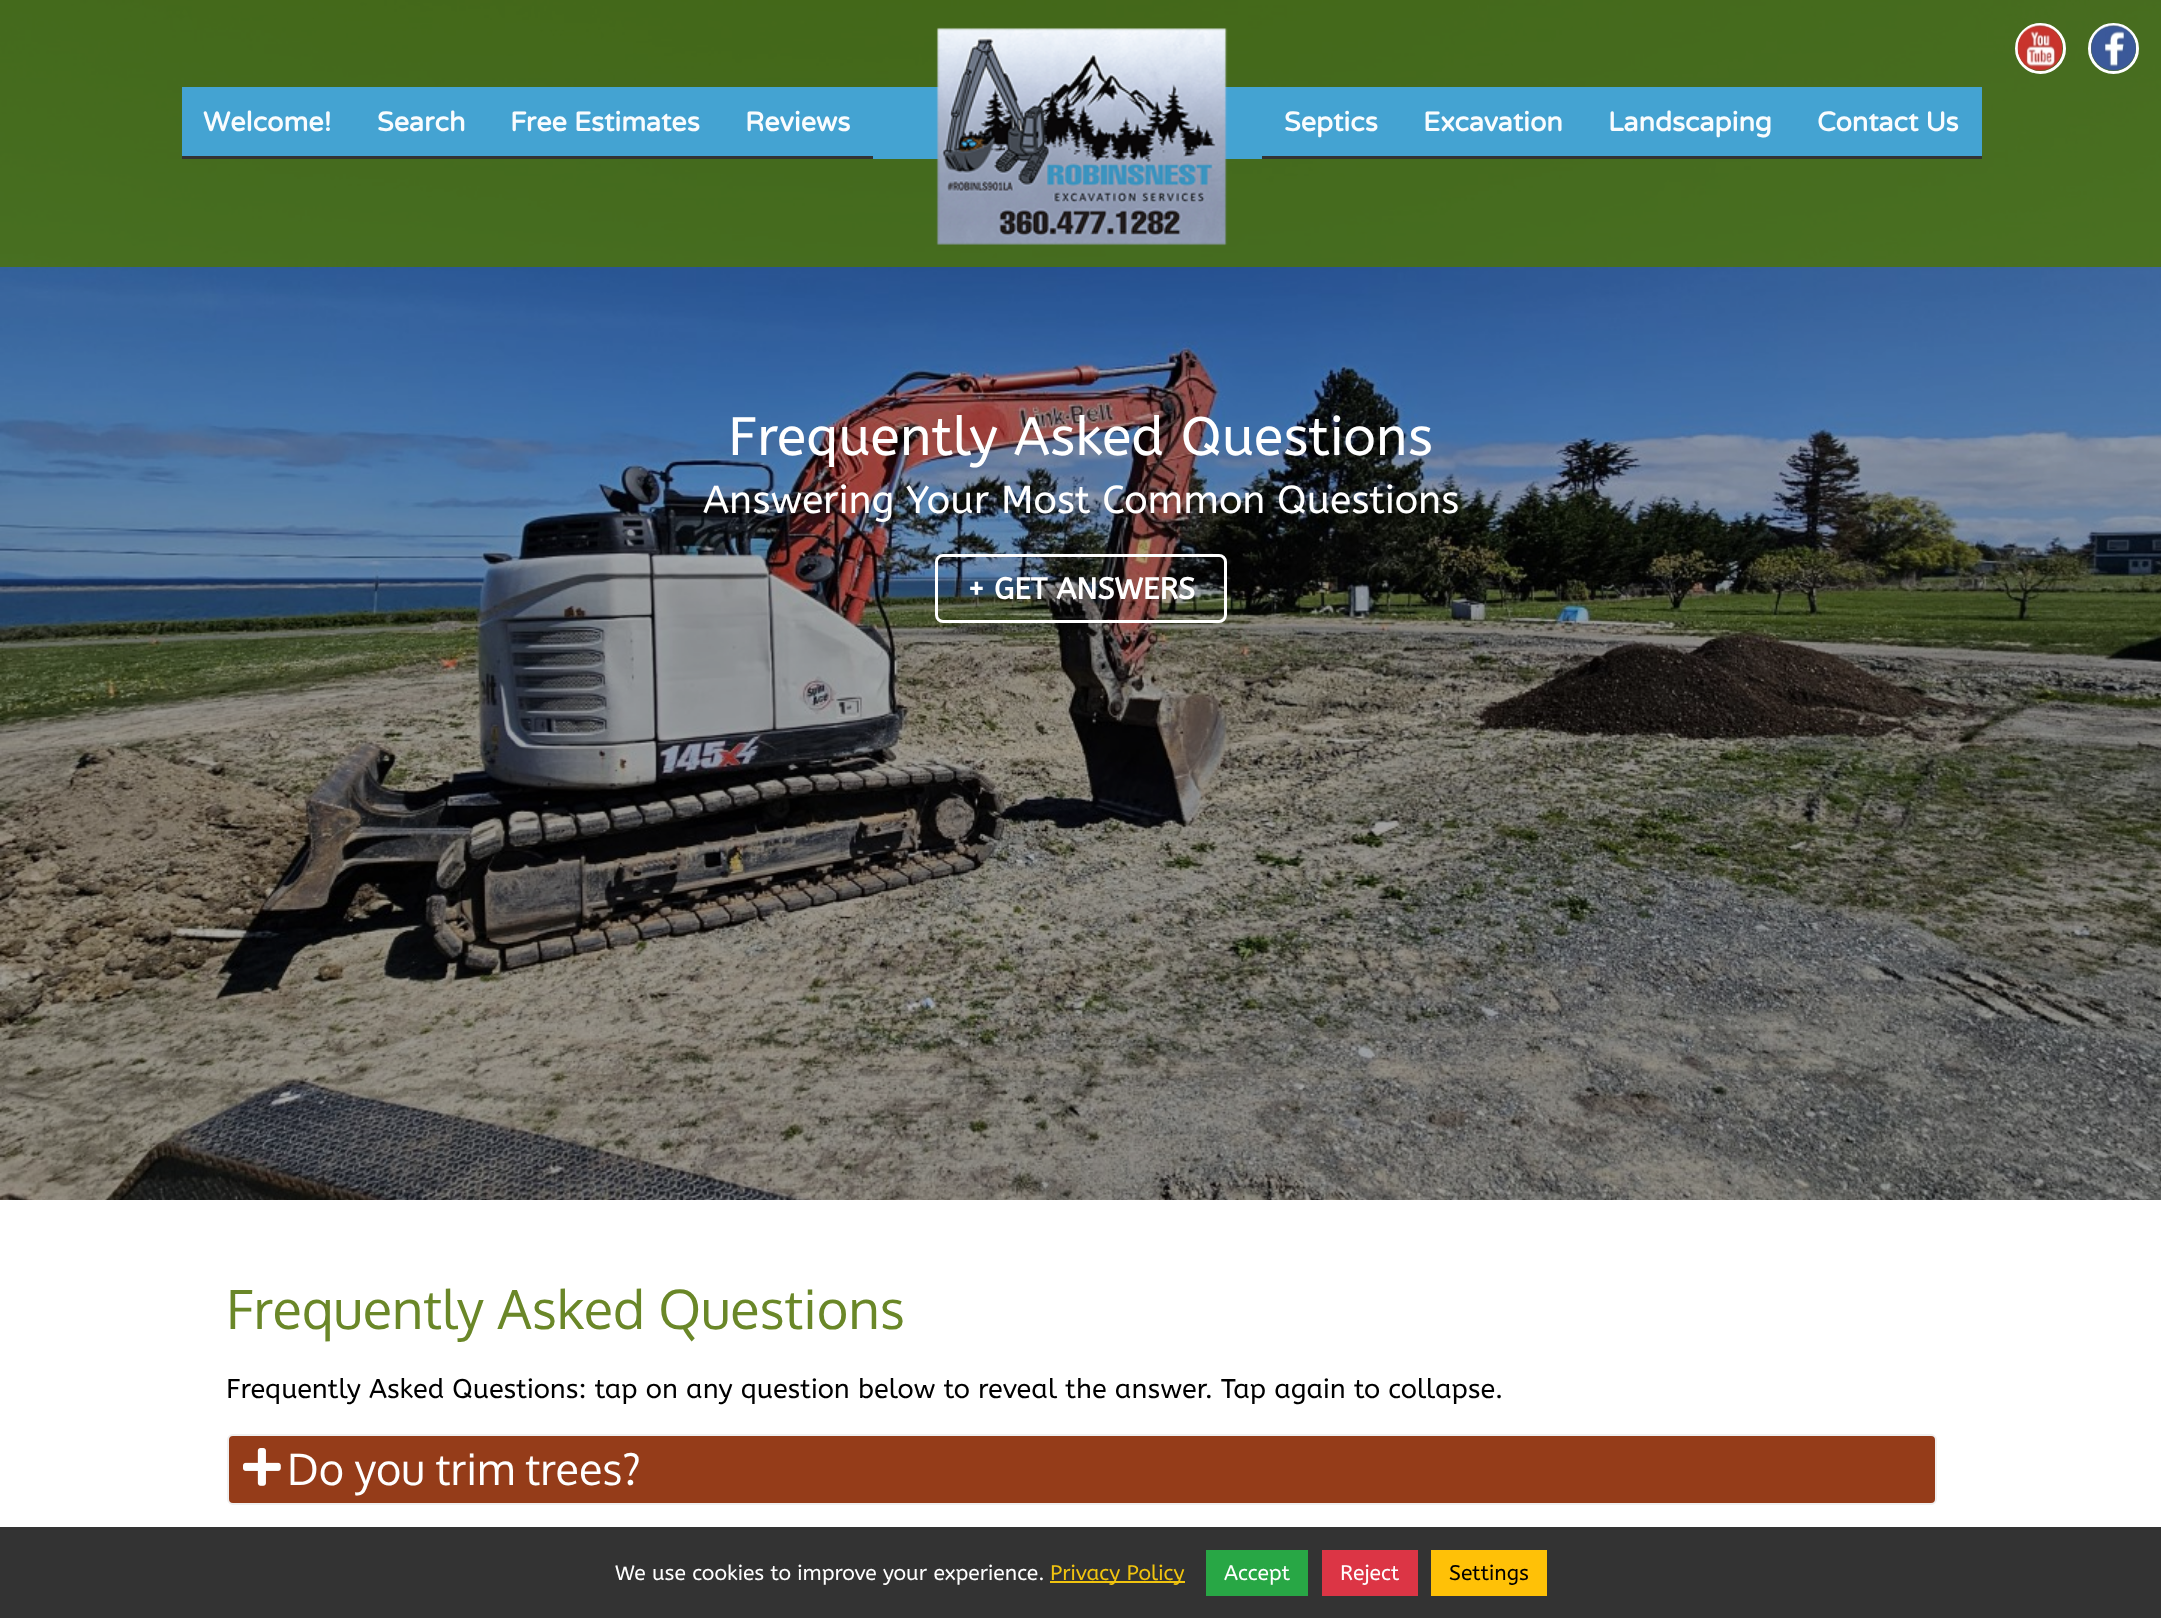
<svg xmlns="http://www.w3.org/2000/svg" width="2161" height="1618">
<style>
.a{font:bold 27px Varela Round;fill:#f9fcfe}
.b{font:54px ABeeZee;fill:#fff}
.c{font:39px ABeeZee;fill:#fff}
.d{font:bold 30px ABeeZee;fill:#fff}
.e{font:54px Oxygen;fill:#6a8728}
.f{font:27px ABeeZee;fill:#000}
.g{font:43.25px Oxygen;fill:#fff}
.h{font:21px ABeeZee;fill:#fff}
.i{font:21px ABeeZee;fill:#f1c40f}
.j{font:21px ABeeZee;fill:#000}
</style>
<rect width="100%" height="100%" fill="#fff"/>
<image href="4.png" x="0" y="0" width="2161" height="1200"/>
<path fill="#4e7303cc" d="M0 0h2161v267H0z"/>
<circle fill="none" stroke="#fff" stroke-width="3" cx="2040.5" cy="48.5" r="24"/>
<circle fill="none" stroke="#fff" stroke-width="3" cx="2113.5" cy="48.5" r="24"/>
<image href="1.png" x="2017" y="25" width="46" height="46"/>
<image href="2.png" x="2091" y="25" width="45" height="46"/>
<path fill="#44a3d2" d="M182 87h1800v72H182z"/>
<image href="3.png" x="936" y="27" width="292" height="219"/>
<path fill="#333" d="M182 156h691v3H182z"/>
<path fill="#333" d="M1262 156h720v3H1262z"/>
<rect fill="none" stroke="#fff" stroke-width="3" x="936.5" y="555.5" width="289" height="66" rx="6.5"/>
<rect fill="#953c19" stroke="#f0f0f0" stroke-width="2" x="228" y="1435" width="1708" height="69" rx="5"/>
<image href="5.png" x="243" y="1448" width="38" height="38"/>
<path fill="#333" d="M0 1527h2161v91H0z"/>
<path fill="#f1c40f" d="M1050 1581h135v2H1050z"/>
<path fill="#28a745" d="M1206 1550h102v46H1206z"/>
<path fill="#dc3545" d="M1322 1550h96v46H1322z"/>
<path fill="#ffc107" d="M1431 1550h116v46H1431z"/>
<text class="a" x="203" y="131">Welcome!</text>
<text class="a" x="377" y="131">Search</text>
<text class="a" x="510" y="131">Free Estimates</text>
<text class="a" x="745" y="131">Reviews</text>
<text class="a" x="1284" y="131">Septics</text>
<text class="a" x="1423" y="131">Excavation</text>
<text class="a" x="1608" y="131">Landscaping</text>
<text class="a" x="1817" y="131">Contact Us</text>
<text class="b" x="728" y="455">Frequently Asked Questions</text>
<text class="c" x="703" y="513">Answering Your Most Common Questions</text>
<text class="d" x="967" y="599">+ GET ANSWERS</text>
<text class="e" x="226" y="1329">Frequently Asked Questions</text>
<text class="f" x="226" y="1398">Frequently Asked Questions: tap on any question below to reveal the answer. Tap again to collapse.</text>
<text class="g" x="287" y="1485">Do you trim trees?</text>
<text class="h" x="615" y="1580">We use cookies to improve your experience.</text>
<text class="i" x="1050" y="1580">Privacy Policy</text>
<text class="h" x="1224" y="1580">Accept</text>
<text class="h" x="1340" y="1580">Reject</text>
<text class="j" x="1449" y="1580">Settings</text>
</svg>
